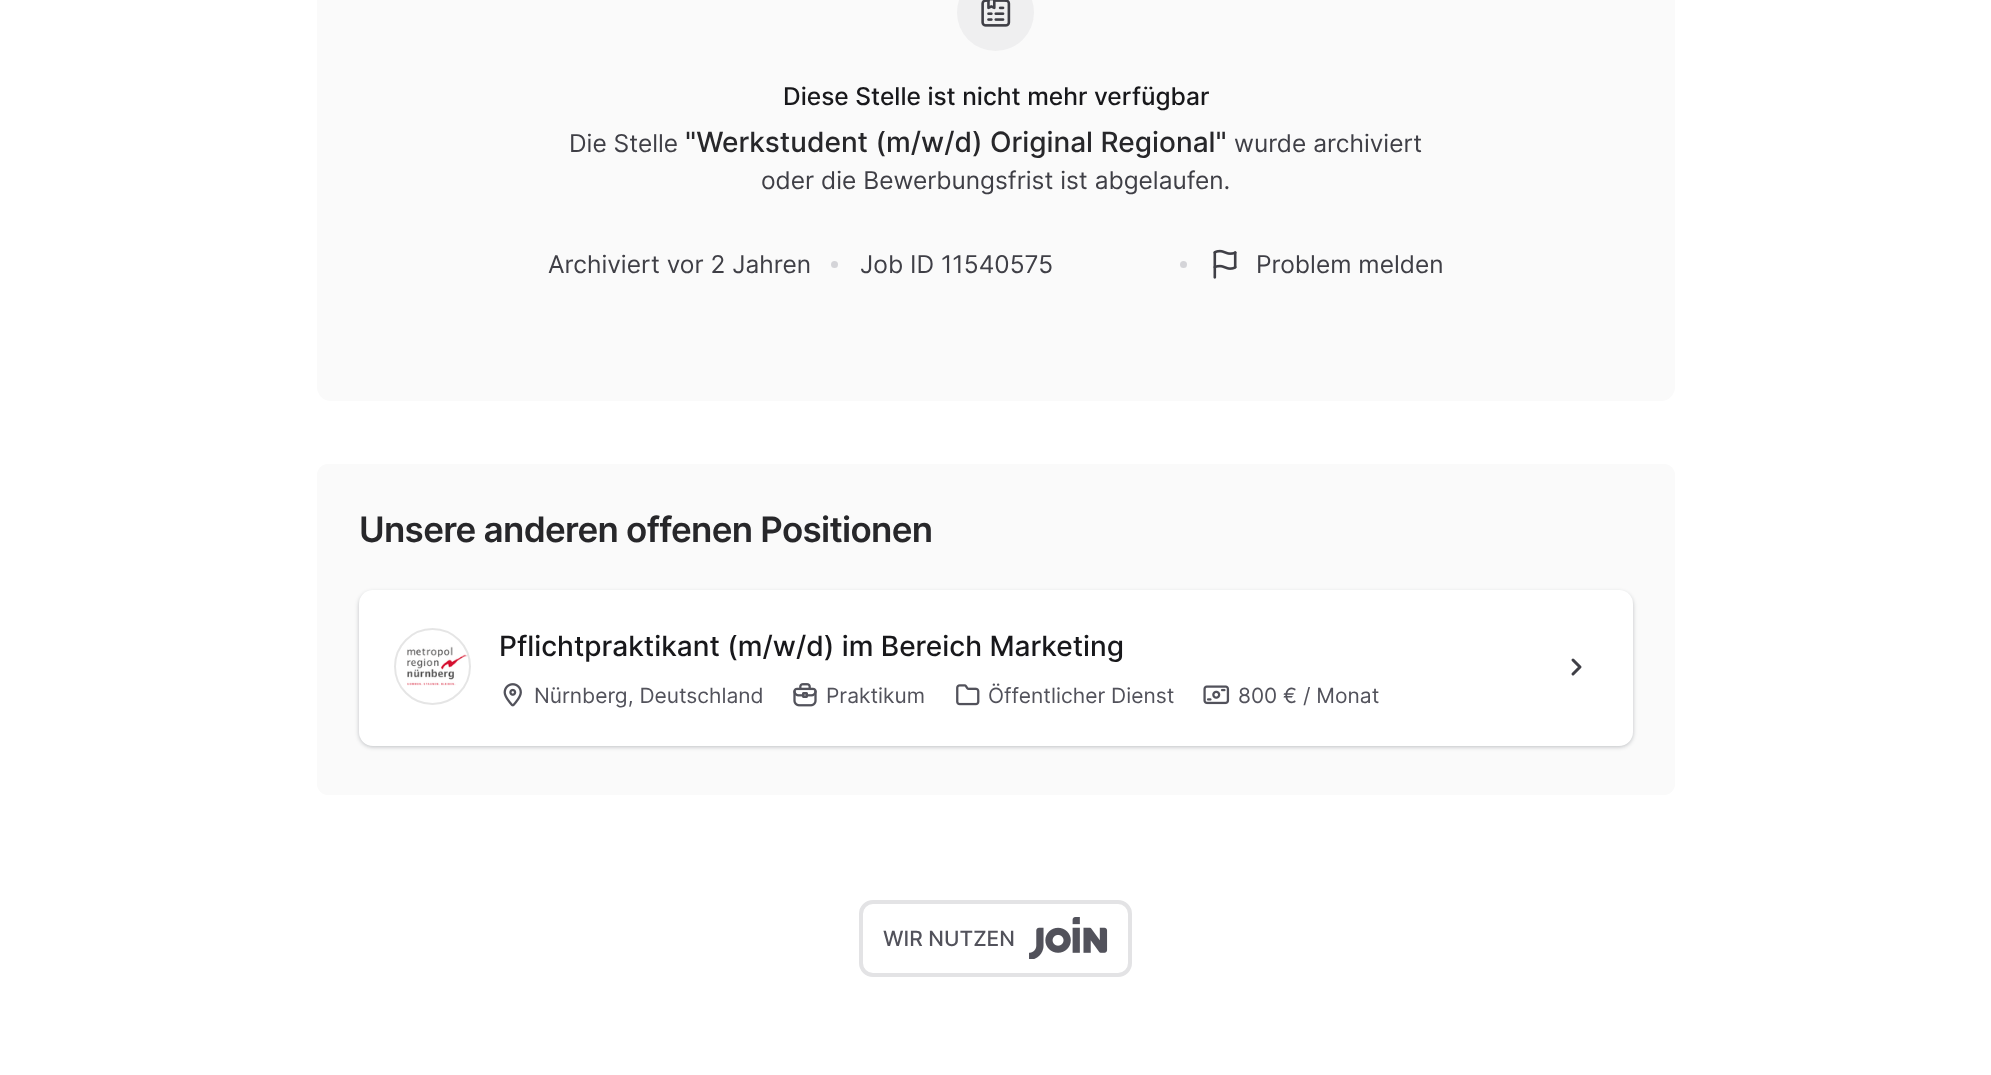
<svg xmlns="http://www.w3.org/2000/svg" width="1991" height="1075">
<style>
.a{font:500 24.5px Inter;fill:#18181b}
.b{font:24.5px Inter;fill:#3f3f46}
.c{font:500 28px Inter;fill:#27272a}
.d{font:600 35px Inter;letter-spacing:-0.7px;fill:#27272a}
.e{font:500 28px Inter;fill:#18181b}
.f{font:21px Inter;fill:#52525b}
.g{font:500 21px Inter;fill:#52525b}
</style>
<rect width="100%" height="100%" fill="#fff"/>
<rect fill="#fafafa" x="317" y="-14" width="1358" height="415" rx="14"/>
<circle fill="#efeff0" cx="995.5" cy="12.5" r="38.5"/>
<image href="1.png" x="981" y="0" width="30" height="27"/>
<circle fill="#d4d4d8" cx="834.5" cy="264.5" r="3.5"/>
<circle fill="#d4d4d8" cx="1183.5" cy="264.5" r="3.5"/>
<image href="2.png" x="1213" y="249" width="24" height="30"/>
<rect fill="#fafafa" x="317" y="464" width="1358" height="331" rx="11"/>
<rect fill="#0e182440" filter="blur(2px)" x="359" y="592" width="1274" height="155" rx="14"/>
<rect fill="#fff" x="359" y="590" width="1274" height="156" rx="14"/>
<image href="3.png" x="407" y="646" width="61" height="40"/>
<circle fill="none" stroke="#0000001a" stroke-width="2" cx="432.5" cy="666.5" r="37.5"/>
<image href="4.png" x="503" y="683" width="19" height="24"/>
<image href="5.png" x="793" y="683" width="24" height="24"/>
<image href="6.png" x="956" y="684" width="24" height="22"/>
<image href="7.png" x="1203" y="685" width="27" height="20"/>
<path fill="none" stroke="#3f3f46" stroke-width="3" stroke-linecap="round" stroke-linejoin="round" d="M1573 674l7-7l-7-7"/>
<rect fill="none" stroke="#e3e3e5" stroke-width="4" x="861" y="902" width="269" height="73" rx="12"/>
<image href="8.png" x="1029" y="917" width="79" height="42"/>
<text class="a" x="783" y="105">Diese Stelle ist nicht mehr verfügbar</text>
<text class="b" x="569" y="152">Die Stelle</text>
<text class="c" x="685" y="152">"Werkstudent (m/w/d) Original Regional"</text>
<text class="b" x="1234" y="152">wurde archiviert</text>
<text class="b" x="761" y="189">oder die Bewerbungsfrist ist abgelaufen.</text>
<text class="b" x="548" y="273">Archiviert vor 2 Jahren</text>
<text class="b" x="860" y="273">Job ID 11540575</text>
<text class="b" x="1256" y="273">Problem melden</text>
<text class="d" x="359" y="542">Unsere anderen offenen Positionen</text>
<text class="e" x="499" y="656">Pflichtpraktikant (m/w/d) im Bereich Marketing</text>
<text class="f" x="534" y="703">Nürnberg, Deutschland</text>
<text class="f" x="826" y="703">Praktikum</text>
<text class="f" x="988" y="703">Öffentlicher Dienst</text>
<text class="f" x="1238" y="703">800 € / Monat</text>
<text class="g" x="883" y="946">WIR NUTZEN</text>
</svg>
